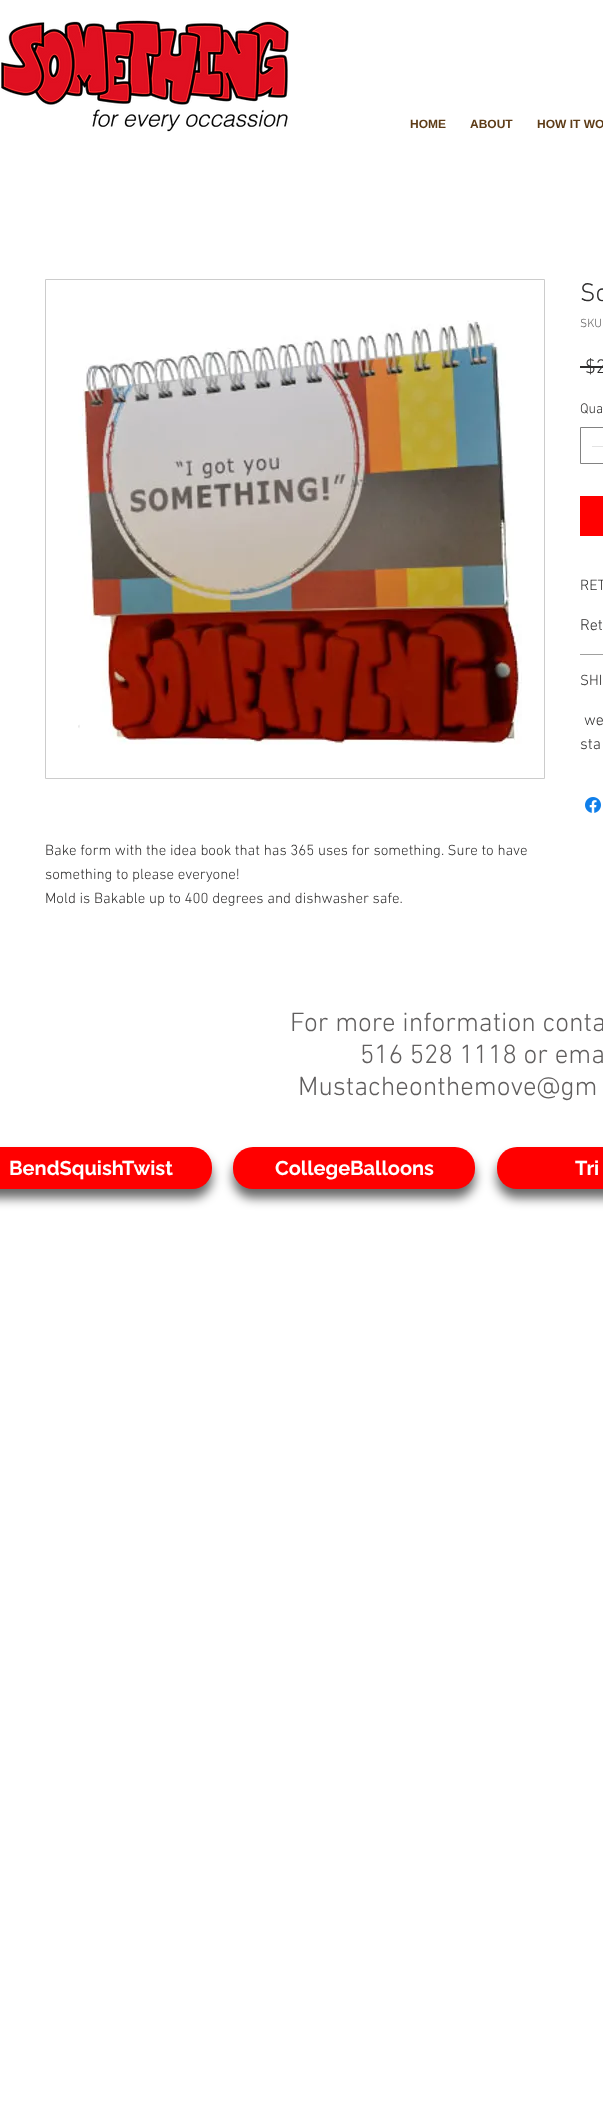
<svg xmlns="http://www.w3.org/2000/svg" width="603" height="2119">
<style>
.a{font:bold 12px Liberation Sans;fill:#5e3c17}
.b{font:300 26px 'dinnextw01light';fill:#2f2e2e}
.c{font:300 12px 'dinnextw01light';fill:#605e5e}
.d{font:300 20px 'dinnextw01light';fill:#2f2e2e}
.e{font:300 14px 'dinnextw01light';fill:#2f2e2e}
.f{font:300 15px 'dinnextw01light';fill:#2f2e2e}
.g{font:300 16px 'dinnextw01light';fill:#2f2e2e}
.h{font:300 27px 'dinnextw01light';fill:#605e5e}
.i{font:bold 20px Raleway;fill:#fff}
</style>
<rect width="100%" height="100%" fill="#fff"/>
<image href="1.png" x="1" y="20" width="288" height="112"/>
<path fill="#2f2e2e" d="M580 366h23v2H580z"/>
<path fill="none" stroke="#828282" d="M580.5 427.5h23v36H580.5z"/>
<path fill="#e3e3e3" d="M592 446h11v1H592z"/>
<path fill="#f00" d="M580 496h23v40H580z"/>
<path fill="#a0a09f" d="M580 654h23v1H580z"/>
<image href="2.png" x="585" y="797" width="16" height="16"/>
<path fill="none" stroke="#ccc" d="M45.5 279.5h499v499H45.5z"/>
<image href="3.png" x="78" y="320" width="444" height="425"/>
<rect fill="#00000099" filter="blur(5.5px)" x="-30" y="1156" width="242" height="42" rx="20"/>
<rect fill="#f00" x="-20" y="1147" width="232" height="42" rx="20"/>
<rect fill="#00000099" filter="blur(5.5px)" x="233" y="1156" width="242" height="42" rx="20"/>
<rect fill="#f00" x="233" y="1147" width="242" height="42" rx="20"/>
<rect fill="#00000099" filter="blur(5.5px)" x="497" y="1156" width="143" height="42" rx="20"/>
<rect fill="#f00" x="497" y="1147" width="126" height="42" rx="20"/>
<text class="a" x="410" y="128">HOME</text>
<text class="a" x="470" y="128">ABOUT</text>
<text class="a" x="537" y="128">HOW IT WO</text>
<text class="b" x="580" y="301">So</text>
<text class="c" x="580" y="327">SKU</text>
<text class="d" x="585" y="373">$2</text>
<text class="e" x="580" y="413">Qua</text>
<text class="f" x="580" y="590">RET</text>
<text class="g" x="580" y="630">Ret</text>
<text class="f" x="580" y="685">SHI</text>
<text class="g" x="584" y="725">we</text>
<text class="g" x="580" y="749">sta</text>
<text class="f" x="45" y="855">Bake form with the idea book that has 365 uses for something. Sure to have</text>
<text class="f" x="45" y="879">something to please everyone!</text>
<text class="f" x="45" y="903">Mold is Bakable up to 400 degrees and dishwasher safe.</text>
<text class="h" x="290" y="1031">For more information conta</text>
<text class="h" x="360" y="1063">516 528 1118 or ema</text>
<text class="h" x="298" y="1095">Mustacheonthemove@gm</text>
<text class="i" x="9" y="1175">BendSquishTwist</text>
<text class="i" x="275" y="1175">CollegeBalloons</text>
<text class="i" x="575" y="1175">Tri</text>
</svg>
